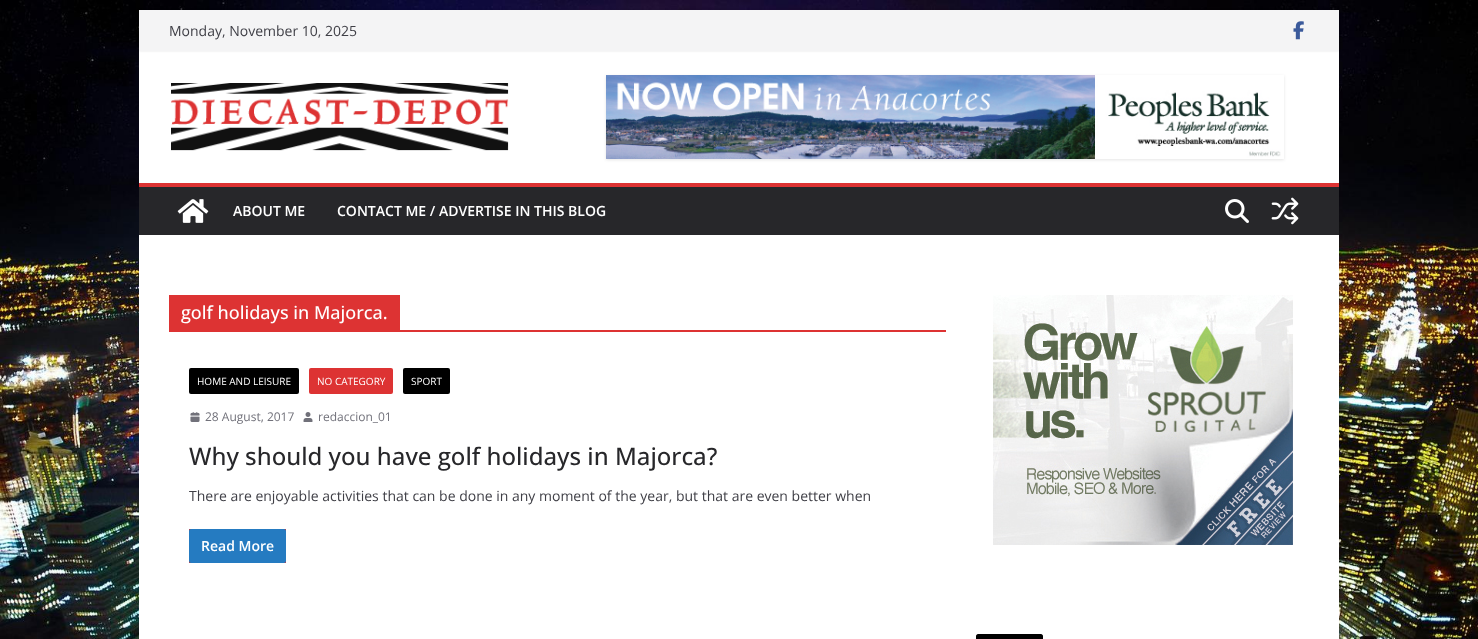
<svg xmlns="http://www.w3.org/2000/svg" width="1478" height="639">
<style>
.a{font:14px Open Sans;fill:#3f3f46}
.b{font:600 14px Open Sans;fill:#fff}
.c{font:500 18px Open Sans;fill:#fff}
.d{font:10px Open Sans;fill:#fff}
.e{font:12px Open Sans;fill:#71717a}
.f{font:500 24px Open Sans;fill:#27272a}
</style>
<defs>
<clipPath id="clip1"><path d="M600 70h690v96h-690zm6 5h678v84h-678z" clip-rule="evenodd"/></clipPath>
</defs>
<rect width="100%" height="100%" fill="#fff"/>
<image href="1.png" x="0" y="0" width="1478" height="639"/>
<path fill="#fff" d="M139 51h1200v132H139z"/>
<path fill="#0000001a" filter="blur(1px)" d="M139 10h1200v41H139z"/>
<path fill="#f4f4f5" d="M139 10h1200v41H139z"/>
<image href="2.png" x="1293" y="21" width="11" height="19"/>
<image href="3.png" x="171" y="83" width="338" height="68"/>
<g clip-path="url(#clip1)">
<path fill="#0000001a" filter="blur(1.5px)" d="M606 76h678v84H606z"/>
</g>
<image href="4.png" x="606" y="75" width="675" height="84"/>
<path fill="#27272a" d="M139 187h1200v48H139z"/>
<path fill="#d33" d="M139 183h1200v4H139z"/>
<image href="5.png" x="177" y="199" width="32" height="24"/>
<image href="6.png" x="1225" y="199" width="24" height="24"/>
<image href="7.png" x="1271" y="197" width="28" height="28"/>
<path fill="#fff" d="M139 235h1200v404H139z"/>
<path fill="#d33" d="M169 330h777v2H169z"/>
<path fill="#d33" d="M169 295h231v35H169z"/>
<rect fill="#000" x="189" y="368" width="110" height="26" rx="2"/>
<rect fill="#d33" x="309" y="368" width="84" height="26" rx="2"/>
<rect fill="#000" x="403" y="368" width="47" height="26" rx="2"/>
<image href="8.png" x="190" y="412" width="10" height="10"/>
<image href="9.png" x="303" y="412" width="10" height="10"/>
<path fill="#d33" d="M189 529h97v34H189z"/>
<rect fill="#257bc1" x="189" y="529" width="97" height="34" rx="2"/>
<image href="10.png" x="993" y="295" width="300" height="250"/>
<path fill="#000" d="M978 634h63c1 0 2 1 2 2v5h-67v-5c0-1 1-2 2-2z"/>
<text class="a" x="169" y="36">Monday, November 10, 2025</text>
<text class="b" x="233" y="216">ABOUT ME</text>
<text class="b" x="337" y="216">CONTACT ME / ADVERTISE IN THIS BLOG</text>
<text class="c" x="181" y="319">golf holidays in Majorca.</text>
<text class="d" x="197" y="385">HOME AND LEISURE</text>
<text class="d" x="317" y="385">NO CATEGORY</text>
<text class="d" x="411" y="385">SPORT</text>
<text class="e" x="205" y="421">28 August, 2017</text>
<text class="e" x="318" y="421">redaccion_01</text>
<text class="f" x="189" y="465">Why should you have golf holidays in Majorca?</text>
<text class="a" x="189" y="501">There are enjoyable activities that can be done in any moment of the year, but that are even better when</text>
<text class="b" x="201" y="551">Read More</text>
</svg>
